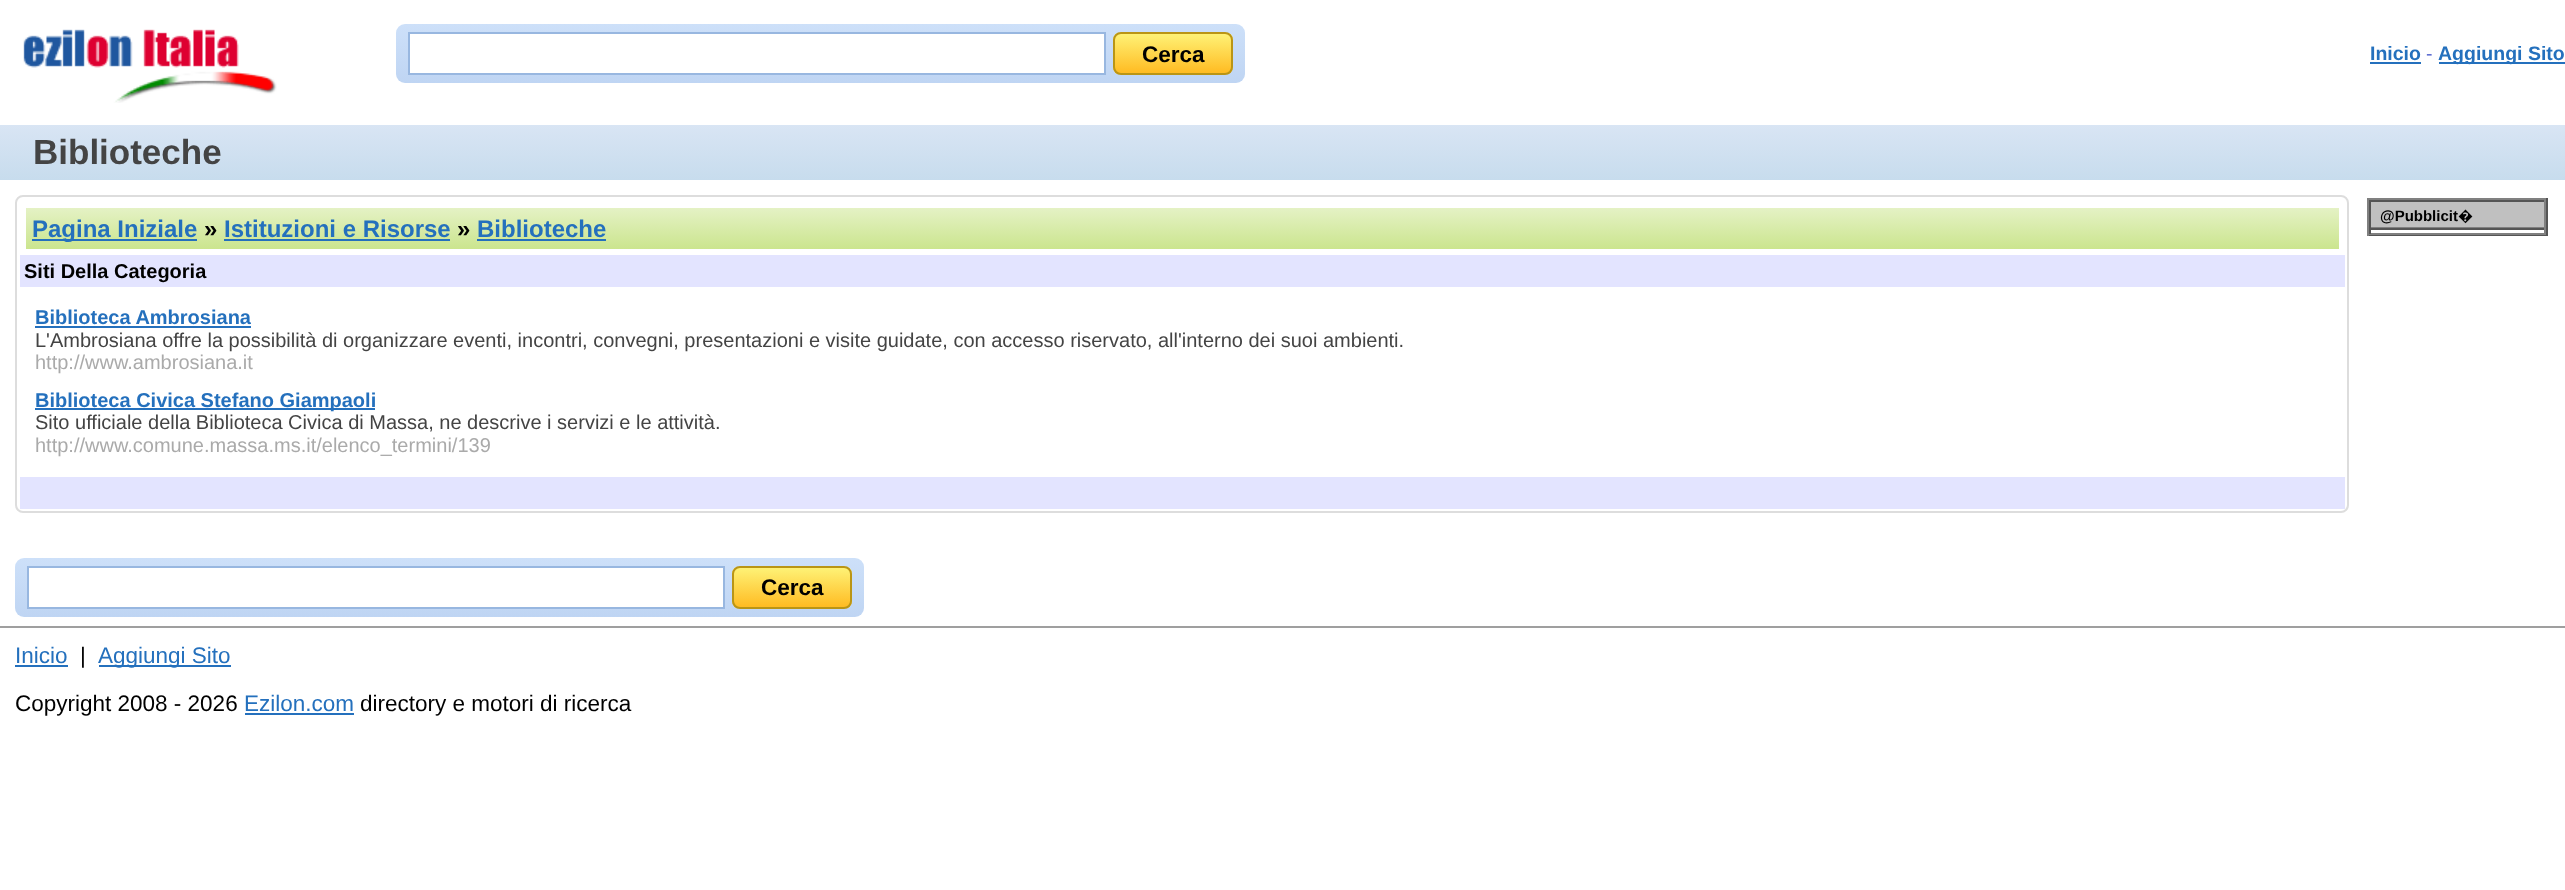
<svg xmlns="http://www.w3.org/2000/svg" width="2565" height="890">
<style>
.a{font:bold 22.5px Liberation Sans;fill:#000}
.b{font:bold 19.5px Liberation Sans;fill:#2470bd}
.c{font:19.5px Liberation Sans;fill:#5868d0}
.d{font:bold 35px Liberation Sans;fill:#444}
.e{font:bold 15px Liberation Sans;fill:#000}
.f{font:bold 15px Noto Sans;fill:#000}
.g{font:bold 24px Liberation Sans;fill:#2470bd}
.h{font:bold 24px Liberation Sans;fill:#000}
.i{font:bold 20px Liberation Sans;fill:#000}
.j{font:bold 20px Liberation Sans;fill:#2470bd}
.k{font:20px Liberation Sans;fill:#444}
.l{font:20px Liberation Sans;fill:#aaa}
.m{font:22.5px Liberation Sans;fill:#2470bd}
.n{font:22.5px Liberation Sans;fill:#000}
</style>
<defs>
<linearGradient id="g1" gradientUnits="userSpaceOnUse" x1="821" y1="24" x2="821" y2="83"><stop offset="0" stop-color="#cde0f9"/><stop offset="1" stop-color="#bfd5f3"/></linearGradient>
<clipPath id="clip1"><rect x="1113" y="32" width="120" height="43" rx="8"/></clipPath>
<linearGradient id="g2" gradientUnits="userSpaceOnUse" x1="1173" y1="33" x2="1173" y2="74"><stop offset="0" stop-color="#fef378"/><stop offset="1" stop-color="#ffba20"/></linearGradient>
<linearGradient id="g3" gradientUnits="userSpaceOnUse" x1="1283" y1="124" x2="1283" y2="180"><stop offset="0" stop-color="#d9e5f4"/><stop offset="1" stop-color="#c7dced"/></linearGradient>
<linearGradient id="g4" gradientUnits="userSpaceOnUse" x1="1182" y1="207" x2="1182" y2="249"><stop offset="0" stop-color="#e5f2c6"/><stop offset="1" stop-color="#cbe58e"/></linearGradient>
<linearGradient id="g5" gradientUnits="userSpaceOnUse" x1="440" y1="558" x2="440" y2="617"><stop offset="0" stop-color="#cde0f9"/><stop offset="1" stop-color="#bfd5f3"/></linearGradient>
<clipPath id="clip2"><rect x="732" y="566" width="120" height="43" rx="8"/></clipPath>
<linearGradient id="g6" gradientUnits="userSpaceOnUse" x1="792" y1="567" x2="792" y2="608"><stop offset="0" stop-color="#fef378"/><stop offset="1" stop-color="#ffba20"/></linearGradient>
</defs>
<rect width="100%" height="100%" fill="#fff"/>
<image href="1.png" x="23" y="29" width="254" height="74"/>
<rect fill="url(#g1)" x="396" y="24" width="849" height="59" rx="9"/>
<path fill="#fff" stroke="#98b7e0" stroke-width="2" d="M409 33h696v41H409z"/>
<g clip-path="url(#clip1)">
<path fill="url(#g2)" d="M1113 33h120v41H1113z"/>
</g>
<rect fill="none" stroke="#ba9515" stroke-width="2" x="1114" y="33" width="118" height="41" rx="7"/>
<path fill="#2470bd" d="M2370 62h51v2H2370z"/>
<path fill="#2470bd" d="M2439 62h126v2H2439z"/>
<path fill="url(#g3)" d="M0 125h2565v55H0z"/>
<path fill="#808080" d="M2367 198h180v2H2367z"/>
<path fill="#555" d="M2546 198h2v38H2546z"/>
<path fill="#555" d="M2367 234h180v2H2367z"/>
<path fill="#808080" d="M2367 198h2v38H2367z"/>
<path fill="#c0c0c0" d="M2371 202h173v25H2371z"/>
<path fill="#555" d="M2369 200h177v2H2369z"/>
<path fill="#808080" d="M2544 200h2v28H2544z"/>
<path fill="#808080" d="M2369 227h177v1H2369z"/>
<path fill="#555" d="M2369 200h2v28H2369z"/>
<path fill="#555" d="M2369 228h177v2H2369z"/>
<path fill="#808080" d="M2544 228h2v6H2544z"/>
<path fill="#808080" d="M2369 233h177v2H2369z"/>
<path fill="#555" d="M2369 228h2v6H2369z"/>
<rect fill="none" stroke="#ddd" stroke-width="2" x="16" y="196" width="2332" height="316" rx="7"/>
<path fill="url(#g4)" d="M26 208h2313v41H26z"/>
<path fill="#2470bd" d="M32 239h165v2H32z"/>
<path fill="#2470bd" d="M224 239h226v2H224z"/>
<path fill="#2470bd" d="M477 239h129v2H477z"/>
<path fill="#e3e4ff" d="M20 255h2325v32H20z"/>
<path fill="#2470bd" d="M35 326h216v2H35z"/>
<path fill="#2470bd" d="M35 408h340v2H35z"/>
<path fill="#e3e4ff" d="M20 477h2325v32H20z"/>
<rect fill="url(#g5)" x="15" y="558" width="849" height="59" rx="9"/>
<path fill="#fff" stroke="#98b7e0" stroke-width="2" d="M28 567h696v41H28z"/>
<g clip-path="url(#clip2)">
<path fill="url(#g6)" d="M732 567h120v41H732z"/>
</g>
<rect fill="none" stroke="#ba9515" stroke-width="2" x="733" y="567" width="118" height="41" rx="7"/>
<path fill="#9f9f9f" d="M0 626h2565v2H0z"/>
<path fill="#2470bd" d="M15 665h53v2H15z"/>
<path fill="#2470bd" d="M99 665h132v2H99z"/>
<path fill="#2470bd" d="M245 713h109v2H245z"/>
<text class="a" x="1142" y="62">Cerca</text>
<text class="b" x="2370" y="60">Inicio</text>
<text class="c" x="2426" y="60">-</text>
<text class="b" x="2438" y="60">Aggiungi Sito</text>
<text class="d" x="33" y="164">Biblioteche</text>
<text class="e" x="2380" y="221">@Pubblicit</text>
<text class="f" x="2458" y="221">�</text>
<text class="g" x="32" y="237">Pagina Iniziale</text>
<text class="h" x="204" y="237">»</text>
<text class="g" x="224" y="237">Istituzioni e Risorse</text>
<text class="h" x="457" y="237">»</text>
<text class="g" x="477" y="237">Biblioteche</text>
<text class="i" x="24" y="278">Siti Della Categoria</text>
<text class="j" x="35" y="324">Biblioteca Ambrosiana</text>
<text class="k" x="35" y="347">L'Ambrosiana offre la possibilità di organizzare eventi, incontri, convegni, presentazioni e visite guidate, con accesso riservato, all'interno dei suoi ambienti.</text>
<text class="l" x="35" y="369">http://www.ambrosiana.it</text>
<text class="j" x="35" y="407">Biblioteca Civica Stefano Giampaoli</text>
<text class="k" x="35" y="429">Sito ufficiale della Biblioteca Civica di Massa, ne descrive i servizi e le attività.</text>
<text class="l" x="35" y="452">http://www.comune.massa.ms.it/elenco_termini/139</text>
<text class="a" x="761" y="595">Cerca</text>
<text class="m" x="15" y="663">Inicio</text>
<text class="n" x="80" y="663">|</text>
<text class="m" x="98" y="663">Aggiungi Sito</text>
<text class="n" x="15" y="711">Copyright 2008 - 2026</text>
<text class="m" x="244" y="711">Ezilon.com</text>
<text class="n" x="360" y="711">directory e motori di ricerca</text>
</svg>
